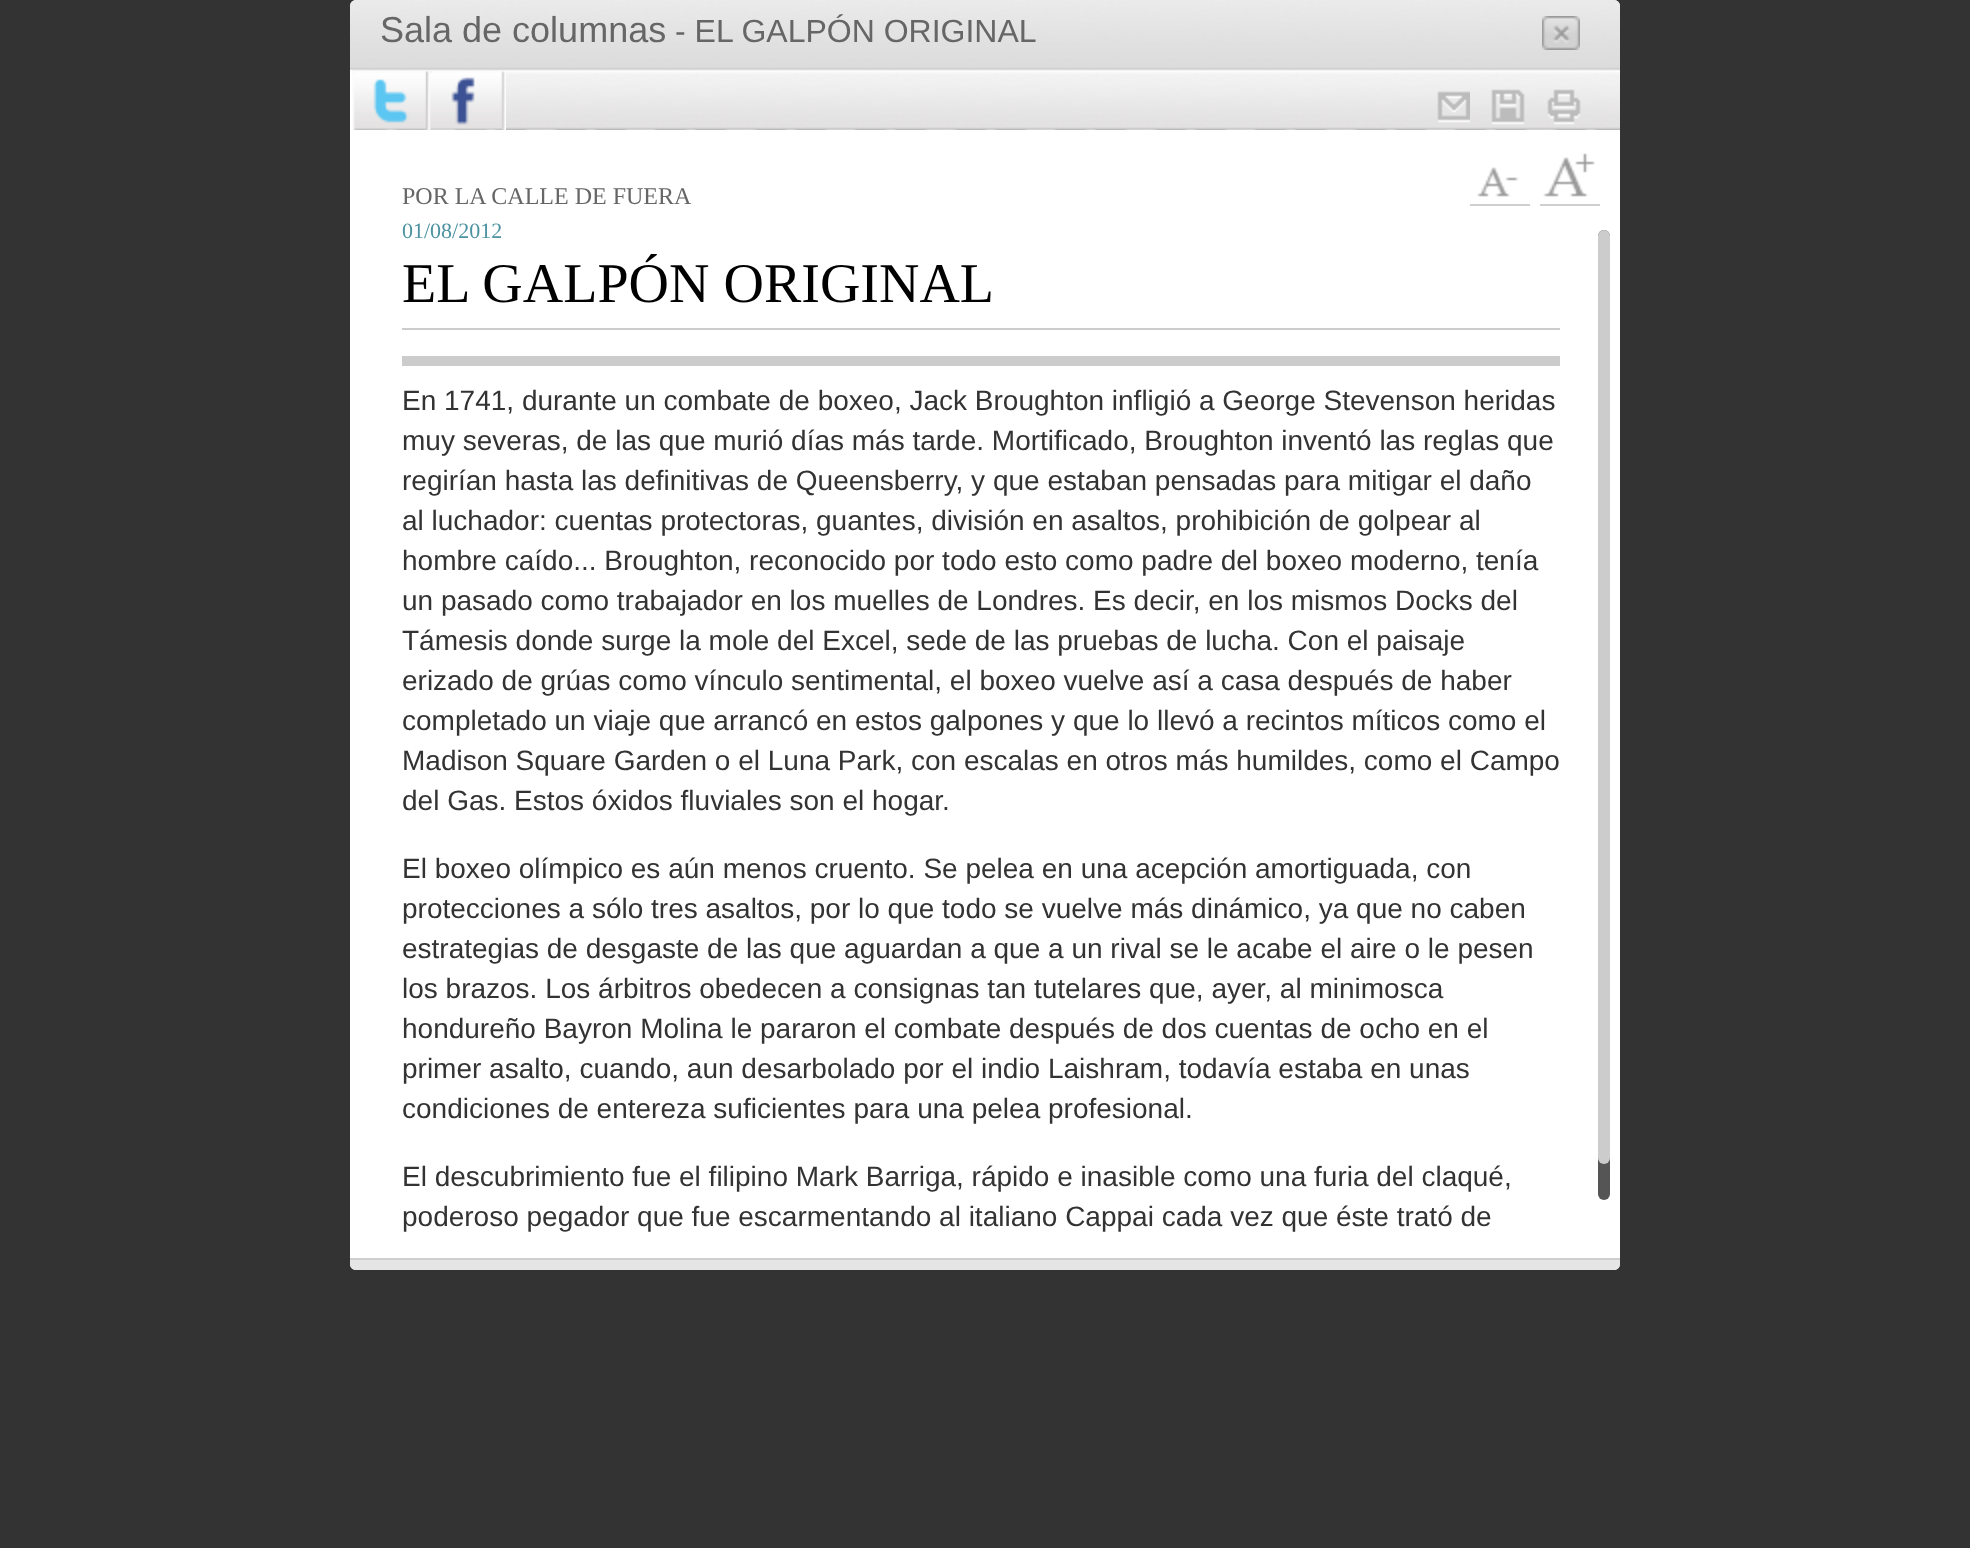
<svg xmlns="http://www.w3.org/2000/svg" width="1970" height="1548">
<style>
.a{font:36px Liberation Sans;fill:#666}
.b{font:32px Liberation Sans;fill:#666}
.c{font:24px Liberation Serif;fill:#666}
.d{font:22px Liberation Serif;fill:#4d93a1}
.e{font:56px Liberation Serif;fill:#000}
.f{font:28px Liberation Sans;fill:#333}
</style>
<rect width="100%" height="100%" fill="#333"/>
<rect fill="#fff" x="350" width="1270" height="1270" rx="6"/>
<image href="1.png" x="350" y="0" width="1270" height="70"/>
<image href="2.png" x="1542" y="16" width="38" height="34"/>
<path fill="#cecece" d="M350 1258h1270v2H350z"/>
<image href="3.png" x="352" y="70" width="1268" height="60"/>
<image href="4.png" x="352" y="71" width="80" height="59"/>
<image href="5.png" x="426" y="71" width="80" height="59"/>
<image href="6.png" x="1437" y="91" width="33" height="32"/>
<image href="7.png" x="1491" y="89" width="34" height="36"/>
<image href="8.png" x="1547" y="89" width="34" height="36"/>
<image href="9.png" x="1477" y="167" width="42" height="30"/>
<path fill="#cfcfcf" d="M1470 204h60v2H1470z"/>
<image href="10.png" x="1543" y="153" width="52" height="44"/>
<path fill="#cfcfcf" d="M1540 204h60v2H1540z"/>
<path fill="#ccc" d="M402 328h1158v2H402z"/>
<path fill="#ccc" d="M402 356h1158v10H402z"/>
<rect fill="#555" x="1598" y="230" width="12" height="970" rx="6"/>
<rect fill="#ccc" x="1598" y="230" width="12" height="934" rx="6"/>
<path fill="#e5e5e5" d="M350 1260h1270v4c0 3.5-2.5 6-6 6h-1258c-3.5 0-6-2.5-6-6z"/>
<text class="a" x="380" y="42">Sala de columnas</text>
<text class="b" x="675" y="42">- EL GALPÓN ORIGINAL</text>
<text class="c" x="402" y="204">POR LA CALLE DE FUERA</text>
<text class="d" x="402" y="238">01/08/2012</text>
<text class="e" x="402" y="302">EL GALPÓN ORIGINAL</text>
<text class="f" x="402" y="410">En 1741, durante un combate de boxeo, Jack Broughton infligió a George Stevenson heridas</text>
<text class="f" x="402" y="450">muy severas, de las que murió días más tarde. Mortificado, Broughton inventó las reglas que</text>
<text class="f" x="402" y="490">regirían hasta las definitivas de Queensberry, y que estaban pensadas para mitigar el daño</text>
<text class="f" x="402" y="530">al luchador: cuentas protectoras, guantes, división en asaltos, prohibición de golpear al</text>
<text class="f" x="402" y="570">hombre caído... Broughton, reconocido por todo esto como padre del boxeo moderno, tenía</text>
<text class="f" x="402" y="610">un pasado como trabajador en los muelles de Londres. Es decir, en los mismos Docks del</text>
<text class="f" x="402" y="650">Támesis donde surge la mole del Excel, sede de las pruebas de lucha. Con el paisaje</text>
<text class="f" x="402" y="690">erizado de grúas como vínculo sentimental, el boxeo vuelve así a casa después de haber</text>
<text class="f" x="402" y="730">completado un viaje que arrancó en estos galpones y que lo llevó a recintos míticos como el</text>
<text class="f" x="402" y="770">Madison Square Garden o el Luna Park, con escalas en otros más humildes, como el Campo</text>
<text class="f" x="402" y="810">del Gas. Estos óxidos fluviales son el hogar.</text>
<text class="f" x="402" y="878">El boxeo olímpico es aún menos cruento. Se pelea en una acepción amortiguada, con</text>
<text class="f" x="402" y="918">protecciones a sólo tres asaltos, por lo que todo se vuelve más dinámico, ya que no caben</text>
<text class="f" x="402" y="958">estrategias de desgaste de las que aguardan a que a un rival se le acabe el aire o le pesen</text>
<text class="f" x="402" y="998">los brazos. Los árbitros obedecen a consignas tan tutelares que, ayer, al minimosca</text>
<text class="f" x="402" y="1038">hondureño Bayron Molina le pararon el combate después de dos cuentas de ocho en el</text>
<text class="f" x="402" y="1078">primer asalto, cuando, aun desarbolado por el indio Laishram, todavía estaba en unas</text>
<text class="f" x="402" y="1118">condiciones de entereza suficientes para una pelea profesional.</text>
<text class="f" x="402" y="1186">El descubrimiento fue el filipino Mark Barriga, rápido e inasible como una furia del claqué,</text>
<text class="f" x="402" y="1226">poderoso pegador que fue escarmentando al italiano Cappai cada vez que éste trató de</text>
</svg>
